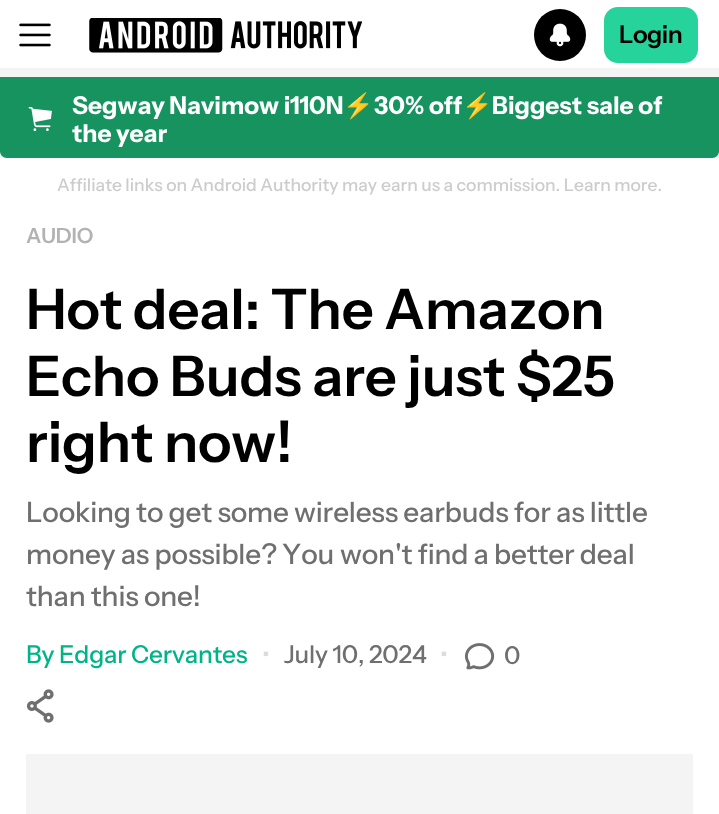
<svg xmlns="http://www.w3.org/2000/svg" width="719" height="814">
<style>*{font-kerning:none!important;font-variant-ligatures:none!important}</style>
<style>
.a{font:600 24.5px Instrument Sans;letter-spacing:-0.5px;fill:#000}
.b{font:bold 24.5px Instrument Sans;fill:#fff}
.c{font:bold 24.5px Noto Color Emoji;fill:#fff}
.d{font:500 17.5px Instrument Sans;fill:#ccc}
.e{font:600 21px Instrument Sans;letter-spacing:-0.18px;fill:#b2b2b2}
.f{font:600 56px Instrument Sans;letter-spacing:-0.18px;fill:#000}
.g{font:500 28px Instrument Sans;letter-spacing:-0.18px;fill:#6f6f6f}
.h{font:500 24.5px Instrument Sans;letter-spacing:-0.18px;fill:#00b487}
.i{font:500 24.5px Instrument Sans;letter-spacing:-0.18px;fill:#dcdcdc}
.j{font:500 24.5px Instrument Sans;letter-spacing:-0.18px;fill:#6f6f6f}
</style>
<defs>
<clipPath id="clip1"><path d="M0 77h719v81H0z"/></clipPath>
</defs>
<rect width="100%" height="100%" fill="#fff"/>
<image href="1.png" x="19" y="23" width="32" height="24"/>
<image href="2.png" x="89" y="18" width="273" height="35"/>
<g clip-path="url(#clip1)">
<path fill="#00d49f80" filter="blur(10.5px)" d="M7 91h705v67H7z"/>
</g>
<circle fill="#000" cx="560" cy="35" r="26"/>
<image href="3.png" x="549" y="23" width="22" height="24"/>
<rect fill="#25d39b" stroke="#25d39b" stroke-width="2" x="605" y="8" width="92" height="54" rx="13"/>
<path fill="#f4f4f4" d="M0 68h719v9H0z"/>
<path fill="#16935f" d="M0 77h719v74c0 4-3 7-7 7h-705c-4 0-7-3-7-7z"/>
<image href="4.png" x="28" y="107" width="24" height="24"/>
<image href="5.png" x="464" y="643" width="31" height="27"/>
<image href="6.png" x="26" y="689" width="28" height="34"/>
<path fill="#f4f4f4" d="M26 754h667v60H26z"/>
<text class="a" x="619" y="43">Login</text>
<text class="b" x="72" y="114">Segway Navimow i110N</text>
<text class="c" x="343" y="114">⚡</text>
<text class="b" x="374" y="114">30% off</text>
<text class="c" x="462" y="114">⚡</text>
<text class="b" x="492" y="114">Biggest sale of</text>
<text class="b" x="72" y="142">the year</text>
<text class="d" x="57" y="191">Affiliate links on Android Authority may</text>
<text class="d" x="381" y="191">earn us a commission. Learn more.</text>
<text class="e" x="26" y="243">AUDIO</text>
<text class="f" x="26" y="329">Hot deal: The Amazon</text>
<text class="f" x="26" y="396">Echo Buds are just $25</text>
<text class="f" x="26" y="462">right now!</text>
<text class="g" x="26" y="522">Looking to get some wireless earbuds for as little</text>
<text class="g" x="26" y="564">money as possible? You</text>
<text class="g" x="340" y="564">won't find a better deal</text>
<text class="g" x="26" y="606">than this one!</text>
<text class="h" x="26" y="663">By Edgar Cervantes</text>
<text class="i" x="262" y="663">•</text>
<text class="j" x="284" y="663">July 10, 2024</text>
<text class="i" x="440" y="663">•</text>
<text class="j" x="504" y="664">0</text>
</svg>
